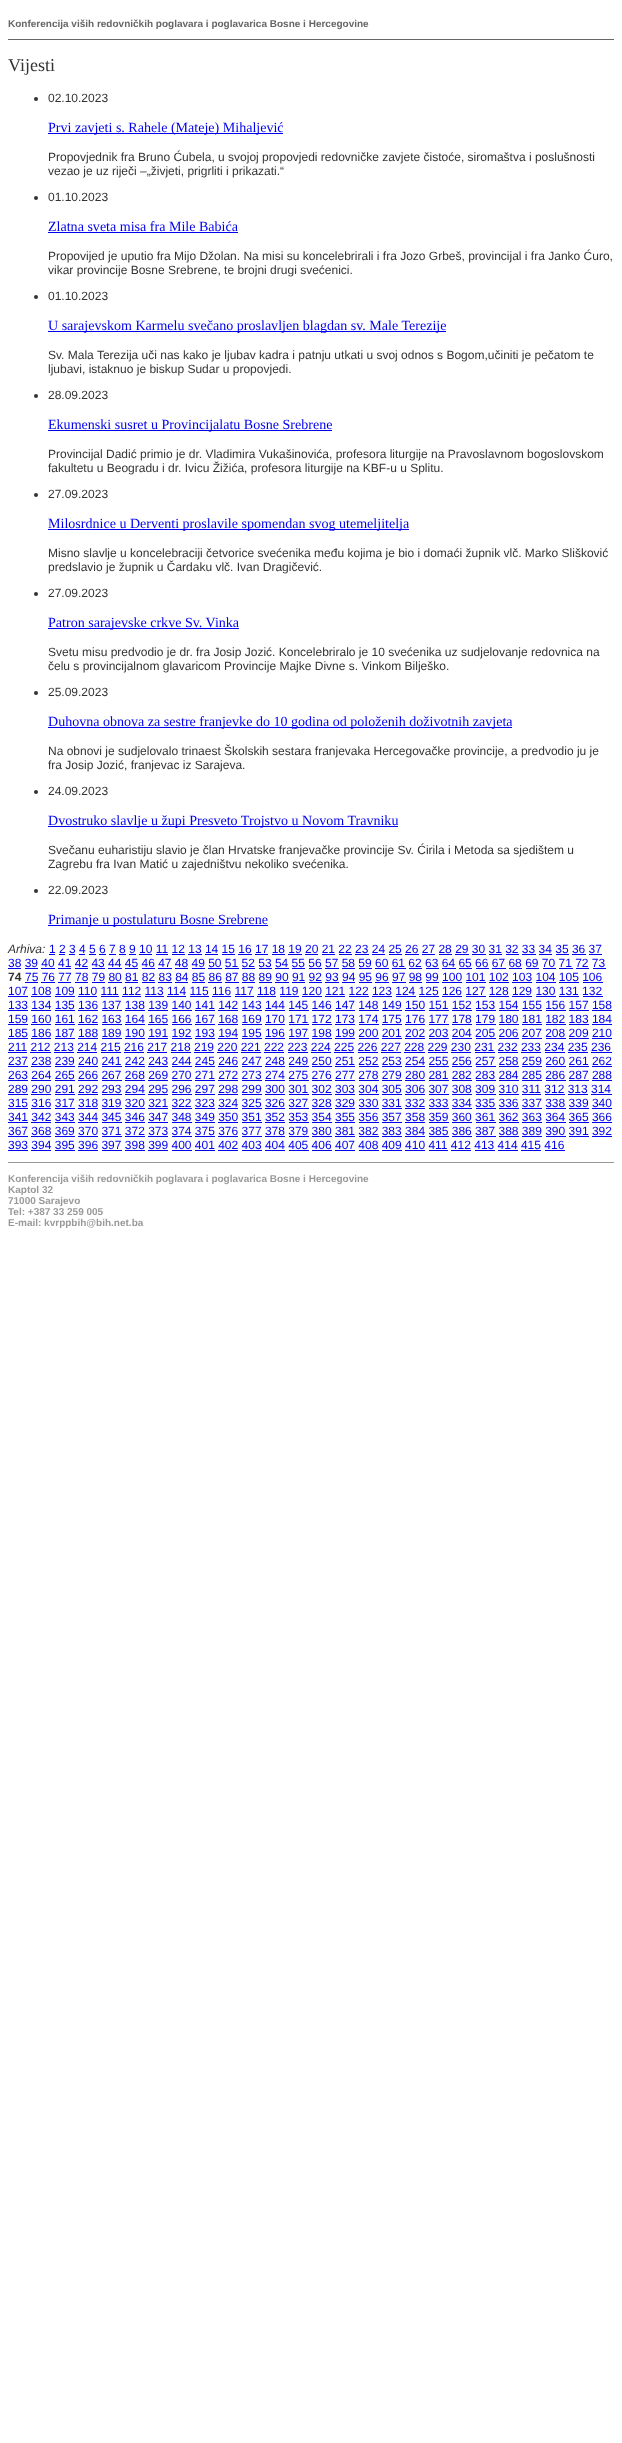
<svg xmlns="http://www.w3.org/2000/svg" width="622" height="2443">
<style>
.a{font:bold 10px Liberation Sans;fill:#666}
.b{font:18px Liberation Serif;fill:#333}
.c{font:12px Liberation Sans;fill:#333}
.d{font:14.05px Liberation Serif;fill:#00e}
.e{font:italic 12px Liberation Sans;fill:#333}
.f{font:12px Liberation Sans;fill:#00e}
.g{font:bold 12px Liberation Sans;fill:#333}
.h{font:bold 10px Liberation Sans;fill:#999}
</style>
<rect width="100%" height="100%" fill="#fff"/>
<path fill="#666" d="M8 39h606v1H8z"/>
<circle fill="#333" cx="36" cy="99" r="2"/>
<path fill="#00e" d="M48 133h235v1H48z"/>
<circle fill="#333" cx="36" cy="198" r="2"/>
<path fill="#00e" d="M48 232h190v1H48z"/>
<circle fill="#333" cx="36" cy="297" r="2"/>
<path fill="#00e" d="M48 331h398v1H48z"/>
<circle fill="#333" cx="36" cy="396" r="2"/>
<path fill="#00e" d="M48 430h284v1H48z"/>
<circle fill="#333" cx="36" cy="495" r="2"/>
<path fill="#00e" d="M48 529h361v1H48z"/>
<circle fill="#333" cx="36" cy="594" r="2"/>
<path fill="#00e" d="M48 628h191v1H48z"/>
<circle fill="#333" cx="36" cy="693" r="2"/>
<path fill="#00e" d="M48 727h464v1H48z"/>
<circle fill="#333" cx="36" cy="792" r="2"/>
<path fill="#00e" d="M48 826h350v1H48z"/>
<circle fill="#333" cx="36" cy="891" r="2"/>
<path fill="#00e" d="M48 925h220v1H48z"/>
<path fill="#00e" d="M49 954h6v1H49z"/>
<path fill="#00e" d="M59 954h6v1H59z"/>
<path fill="#00e" d="M69 954h6v1H69z"/>
<path fill="#00e" d="M79 954h6v1H79z"/>
<path fill="#00e" d="M89 954h7v1H89z"/>
<path fill="#00e" d="M99 954h7v1H99z"/>
<path fill="#00e" d="M109 954h7v1H109z"/>
<path fill="#00e" d="M119 954h7v1H119z"/>
<path fill="#00e" d="M129 954h7v1H129z"/>
<path fill="#00e" d="M139 954h13v1H139z"/>
<path fill="#00e" d="M156 954h12v1H156z"/>
<path fill="#00e" d="M172 954h13v1H172z"/>
<path fill="#00e" d="M188 954h14v1H188z"/>
<path fill="#00e" d="M205 954h13v1H205z"/>
<path fill="#00e" d="M222 954h13v1H222z"/>
<path fill="#00e" d="M238 954h14v1H238z"/>
<path fill="#00e" d="M255 954h13v1H255z"/>
<path fill="#00e" d="M272 954h13v1H272z"/>
<path fill="#00e" d="M288 954h14v1H288z"/>
<path fill="#00e" d="M305 954h13v1H305z"/>
<path fill="#00e" d="M322 954h13v1H322z"/>
<path fill="#00e" d="M339 954h13v1H339z"/>
<path fill="#00e" d="M355 954h14v1H355z"/>
<path fill="#00e" d="M372 954h13v1H372z"/>
<path fill="#00e" d="M389 954h13v1H389z"/>
<path fill="#00e" d="M405 954h14v1H405z"/>
<path fill="#00e" d="M422 954h13v1H422z"/>
<path fill="#00e" d="M439 954h13v1H439z"/>
<path fill="#00e" d="M455 954h14v1H455z"/>
<path fill="#00e" d="M472 954h14v1H472z"/>
<path fill="#00e" d="M489 954h13v1H489z"/>
<path fill="#00e" d="M506 954h13v1H506z"/>
<path fill="#00e" d="M522 954h14v1H522z"/>
<path fill="#00e" d="M539 954h13v1H539z"/>
<path fill="#00e" d="M556 954h13v1H556z"/>
<path fill="#00e" d="M572 954h14v1H572z"/>
<path fill="#00e" d="M589 954h13v1H589z"/>
<path fill="#00e" d="M8 968h13v1H8z"/>
<path fill="#00e" d="M25 968h13v1H25z"/>
<path fill="#00e" d="M41 968h14v1H41z"/>
<path fill="#00e" d="M58 968h13v1H58z"/>
<path fill="#00e" d="M75 968h13v1H75z"/>
<path fill="#00e" d="M92 968h13v1H92z"/>
<path fill="#00e" d="M108 968h14v1H108z"/>
<path fill="#00e" d="M125 968h13v1H125z"/>
<path fill="#00e" d="M142 968h13v1H142z"/>
<path fill="#00e" d="M158 968h14v1H158z"/>
<path fill="#00e" d="M175 968h13v1H175z"/>
<path fill="#00e" d="M192 968h13v1H192z"/>
<path fill="#00e" d="M208 968h14v1H208z"/>
<path fill="#00e" d="M225 968h14v1H225z"/>
<path fill="#00e" d="M242 968h13v1H242z"/>
<path fill="#00e" d="M259 968h13v1H259z"/>
<path fill="#00e" d="M275 968h14v1H275z"/>
<path fill="#00e" d="M292 968h13v1H292z"/>
<path fill="#00e" d="M309 968h13v1H309z"/>
<path fill="#00e" d="M325 968h14v1H325z"/>
<path fill="#00e" d="M342 968h13v1H342z"/>
<path fill="#00e" d="M359 968h13v1H359z"/>
<path fill="#00e" d="M375 968h14v1H375z"/>
<path fill="#00e" d="M392 968h14v1H392z"/>
<path fill="#00e" d="M409 968h13v1H409z"/>
<path fill="#00e" d="M426 968h13v1H426z"/>
<path fill="#00e" d="M442 968h14v1H442z"/>
<path fill="#00e" d="M459 968h13v1H459z"/>
<path fill="#00e" d="M476 968h13v1H476z"/>
<path fill="#00e" d="M492 968h14v1H492z"/>
<path fill="#00e" d="M509 968h13v1H509z"/>
<path fill="#00e" d="M526 968h13v1H526z"/>
<path fill="#00e" d="M543 968h13v1H543z"/>
<path fill="#00e" d="M559 968h14v1H559z"/>
<path fill="#00e" d="M576 968h13v1H576z"/>
<path fill="#00e" d="M593 968h13v1H593z"/>
<path fill="#00e" d="M25 982h13v1H25z"/>
<path fill="#00e" d="M41 982h14v1H41z"/>
<path fill="#00e" d="M58 982h13v1H58z"/>
<path fill="#00e" d="M75 982h13v1H75z"/>
<path fill="#00e" d="M92 982h13v1H92z"/>
<path fill="#00e" d="M108 982h14v1H108z"/>
<path fill="#00e" d="M125 982h13v1H125z"/>
<path fill="#00e" d="M142 982h13v1H142z"/>
<path fill="#00e" d="M158 982h14v1H158z"/>
<path fill="#00e" d="M175 982h13v1H175z"/>
<path fill="#00e" d="M192 982h13v1H192z"/>
<path fill="#00e" d="M208 982h14v1H208z"/>
<path fill="#00e" d="M225 982h14v1H225z"/>
<path fill="#00e" d="M242 982h13v1H242z"/>
<path fill="#00e" d="M259 982h13v1H259z"/>
<path fill="#00e" d="M275 982h14v1H275z"/>
<path fill="#00e" d="M292 982h13v1H292z"/>
<path fill="#00e" d="M309 982h13v1H309z"/>
<path fill="#00e" d="M325 982h14v1H325z"/>
<path fill="#00e" d="M342 982h13v1H342z"/>
<path fill="#00e" d="M359 982h13v1H359z"/>
<path fill="#00e" d="M375 982h14v1H375z"/>
<path fill="#00e" d="M392 982h14v1H392z"/>
<path fill="#00e" d="M409 982h13v1H409z"/>
<path fill="#00e" d="M426 982h13v1H426z"/>
<path fill="#00e" d="M442 982h20v1H442z"/>
<path fill="#00e" d="M466 982h20v1H466z"/>
<path fill="#00e" d="M489 982h20v1H489z"/>
<path fill="#00e" d="M512 982h20v1H512z"/>
<path fill="#00e" d="M536 982h20v1H536z"/>
<path fill="#00e" d="M559 982h20v1H559z"/>
<path fill="#00e" d="M583 982h20v1H583z"/>
<path fill="#00e" d="M8 996h20v1H8z"/>
<path fill="#00e" d="M31 996h20v1H31z"/>
<path fill="#00e" d="M55 996h20v1H55z"/>
<path fill="#00e" d="M78 996h19v1H78z"/>
<path fill="#00e" d="M101 996h18v1H101z"/>
<path fill="#00e" d="M122 996h19v1H122z"/>
<path fill="#00e" d="M145 996h19v1H145z"/>
<path fill="#00e" d="M167 996h19v1H167z"/>
<path fill="#00e" d="M190 996h19v1H190z"/>
<path fill="#00e" d="M212 996h19v1H212z"/>
<path fill="#00e" d="M235 996h19v1H235z"/>
<path fill="#00e" d="M257 996h19v1H257z"/>
<path fill="#00e" d="M280 996h19v1H280z"/>
<path fill="#00e" d="M302 996h20v1H302z"/>
<path fill="#00e" d="M325 996h20v1H325z"/>
<path fill="#00e" d="M349 996h20v1H349z"/>
<path fill="#00e" d="M372 996h20v1H372z"/>
<path fill="#00e" d="M396 996h20v1H396z"/>
<path fill="#00e" d="M419 996h20v1H419z"/>
<path fill="#00e" d="M442 996h20v1H442z"/>
<path fill="#00e" d="M466 996h20v1H466z"/>
<path fill="#00e" d="M489 996h20v1H489z"/>
<path fill="#00e" d="M512 996h20v1H512z"/>
<path fill="#00e" d="M536 996h20v1H536z"/>
<path fill="#00e" d="M559 996h20v1H559z"/>
<path fill="#00e" d="M583 996h20v1H583z"/>
<path fill="#00e" d="M8 1010h20v1H8z"/>
<path fill="#00e" d="M31 1010h20v1H31z"/>
<path fill="#00e" d="M55 1010h20v1H55z"/>
<path fill="#00e" d="M78 1010h20v1H78z"/>
<path fill="#00e" d="M102 1010h20v1H102z"/>
<path fill="#00e" d="M125 1010h20v1H125z"/>
<path fill="#00e" d="M148 1010h20v1H148z"/>
<path fill="#00e" d="M172 1010h20v1H172z"/>
<path fill="#00e" d="M195 1010h20v1H195z"/>
<path fill="#00e" d="M218 1010h20v1H218z"/>
<path fill="#00e" d="M242 1010h20v1H242z"/>
<path fill="#00e" d="M265 1010h20v1H265z"/>
<path fill="#00e" d="M289 1010h20v1H289z"/>
<path fill="#00e" d="M312 1010h20v1H312z"/>
<path fill="#00e" d="M335 1010h20v1H335z"/>
<path fill="#00e" d="M359 1010h20v1H359z"/>
<path fill="#00e" d="M382 1010h20v1H382z"/>
<path fill="#00e" d="M405 1010h20v1H405z"/>
<path fill="#00e" d="M429 1010h20v1H429z"/>
<path fill="#00e" d="M452 1010h20v1H452z"/>
<path fill="#00e" d="M476 1010h20v1H476z"/>
<path fill="#00e" d="M499 1010h20v1H499z"/>
<path fill="#00e" d="M522 1010h20v1H522z"/>
<path fill="#00e" d="M546 1010h20v1H546z"/>
<path fill="#00e" d="M569 1010h20v1H569z"/>
<path fill="#00e" d="M592 1010h20v1H592z"/>
<path fill="#00e" d="M8 1024h20v1H8z"/>
<path fill="#00e" d="M31 1024h20v1H31z"/>
<path fill="#00e" d="M55 1024h20v1H55z"/>
<path fill="#00e" d="M78 1024h20v1H78z"/>
<path fill="#00e" d="M102 1024h20v1H102z"/>
<path fill="#00e" d="M125 1024h20v1H125z"/>
<path fill="#00e" d="M148 1024h20v1H148z"/>
<path fill="#00e" d="M172 1024h20v1H172z"/>
<path fill="#00e" d="M195 1024h20v1H195z"/>
<path fill="#00e" d="M218 1024h20v1H218z"/>
<path fill="#00e" d="M242 1024h20v1H242z"/>
<path fill="#00e" d="M265 1024h20v1H265z"/>
<path fill="#00e" d="M289 1024h20v1H289z"/>
<path fill="#00e" d="M312 1024h20v1H312z"/>
<path fill="#00e" d="M335 1024h20v1H335z"/>
<path fill="#00e" d="M359 1024h20v1H359z"/>
<path fill="#00e" d="M382 1024h20v1H382z"/>
<path fill="#00e" d="M405 1024h20v1H405z"/>
<path fill="#00e" d="M429 1024h20v1H429z"/>
<path fill="#00e" d="M452 1024h20v1H452z"/>
<path fill="#00e" d="M476 1024h20v1H476z"/>
<path fill="#00e" d="M499 1024h20v1H499z"/>
<path fill="#00e" d="M522 1024h20v1H522z"/>
<path fill="#00e" d="M546 1024h20v1H546z"/>
<path fill="#00e" d="M569 1024h20v1H569z"/>
<path fill="#00e" d="M592 1024h20v1H592z"/>
<path fill="#00e" d="M8 1038h20v1H8z"/>
<path fill="#00e" d="M31 1038h20v1H31z"/>
<path fill="#00e" d="M55 1038h20v1H55z"/>
<path fill="#00e" d="M78 1038h20v1H78z"/>
<path fill="#00e" d="M102 1038h20v1H102z"/>
<path fill="#00e" d="M125 1038h20v1H125z"/>
<path fill="#00e" d="M148 1038h20v1H148z"/>
<path fill="#00e" d="M172 1038h20v1H172z"/>
<path fill="#00e" d="M195 1038h20v1H195z"/>
<path fill="#00e" d="M218 1038h20v1H218z"/>
<path fill="#00e" d="M242 1038h20v1H242z"/>
<path fill="#00e" d="M265 1038h20v1H265z"/>
<path fill="#00e" d="M289 1038h20v1H289z"/>
<path fill="#00e" d="M312 1038h20v1H312z"/>
<path fill="#00e" d="M335 1038h20v1H335z"/>
<path fill="#00e" d="M359 1038h20v1H359z"/>
<path fill="#00e" d="M382 1038h20v1H382z"/>
<path fill="#00e" d="M405 1038h20v1H405z"/>
<path fill="#00e" d="M429 1038h20v1H429z"/>
<path fill="#00e" d="M452 1038h20v1H452z"/>
<path fill="#00e" d="M476 1038h20v1H476z"/>
<path fill="#00e" d="M499 1038h20v1H499z"/>
<path fill="#00e" d="M522 1038h20v1H522z"/>
<path fill="#00e" d="M546 1038h20v1H546z"/>
<path fill="#00e" d="M569 1038h20v1H569z"/>
<path fill="#00e" d="M592 1038h20v1H592z"/>
<path fill="#00e" d="M8 1052h19v1H8z"/>
<path fill="#00e" d="M30 1052h21v1H30z"/>
<path fill="#00e" d="M54 1052h20v1H54z"/>
<path fill="#00e" d="M77 1052h20v1H77z"/>
<path fill="#00e" d="M101 1052h20v1H101z"/>
<path fill="#00e" d="M124 1052h20v1H124z"/>
<path fill="#00e" d="M147 1052h20v1H147z"/>
<path fill="#00e" d="M171 1052h20v1H171z"/>
<path fill="#00e" d="M194 1052h20v1H194z"/>
<path fill="#00e" d="M217 1052h21v1H217z"/>
<path fill="#00e" d="M241 1052h20v1H241z"/>
<path fill="#00e" d="M264 1052h20v1H264z"/>
<path fill="#00e" d="M288 1052h20v1H288z"/>
<path fill="#00e" d="M311 1052h20v1H311z"/>
<path fill="#00e" d="M334 1052h20v1H334z"/>
<path fill="#00e" d="M358 1052h20v1H358z"/>
<path fill="#00e" d="M381 1052h20v1H381z"/>
<path fill="#00e" d="M404 1052h21v1H404z"/>
<path fill="#00e" d="M428 1052h20v1H428z"/>
<path fill="#00e" d="M451 1052h20v1H451z"/>
<path fill="#00e" d="M475 1052h20v1H475z"/>
<path fill="#00e" d="M498 1052h20v1H498z"/>
<path fill="#00e" d="M521 1052h20v1H521z"/>
<path fill="#00e" d="M545 1052h20v1H545z"/>
<path fill="#00e" d="M568 1052h20v1H568z"/>
<path fill="#00e" d="M591 1052h21v1H591z"/>
<path fill="#00e" d="M8 1066h20v1H8z"/>
<path fill="#00e" d="M31 1066h20v1H31z"/>
<path fill="#00e" d="M55 1066h20v1H55z"/>
<path fill="#00e" d="M78 1066h20v1H78z"/>
<path fill="#00e" d="M102 1066h20v1H102z"/>
<path fill="#00e" d="M125 1066h20v1H125z"/>
<path fill="#00e" d="M148 1066h20v1H148z"/>
<path fill="#00e" d="M172 1066h20v1H172z"/>
<path fill="#00e" d="M195 1066h20v1H195z"/>
<path fill="#00e" d="M218 1066h20v1H218z"/>
<path fill="#00e" d="M242 1066h20v1H242z"/>
<path fill="#00e" d="M265 1066h20v1H265z"/>
<path fill="#00e" d="M289 1066h20v1H289z"/>
<path fill="#00e" d="M312 1066h20v1H312z"/>
<path fill="#00e" d="M335 1066h20v1H335z"/>
<path fill="#00e" d="M359 1066h20v1H359z"/>
<path fill="#00e" d="M382 1066h20v1H382z"/>
<path fill="#00e" d="M405 1066h20v1H405z"/>
<path fill="#00e" d="M429 1066h20v1H429z"/>
<path fill="#00e" d="M452 1066h20v1H452z"/>
<path fill="#00e" d="M476 1066h20v1H476z"/>
<path fill="#00e" d="M499 1066h20v1H499z"/>
<path fill="#00e" d="M522 1066h20v1H522z"/>
<path fill="#00e" d="M546 1066h20v1H546z"/>
<path fill="#00e" d="M569 1066h20v1H569z"/>
<path fill="#00e" d="M592 1066h20v1H592z"/>
<path fill="#00e" d="M8 1080h20v1H8z"/>
<path fill="#00e" d="M31 1080h20v1H31z"/>
<path fill="#00e" d="M55 1080h20v1H55z"/>
<path fill="#00e" d="M78 1080h20v1H78z"/>
<path fill="#00e" d="M102 1080h20v1H102z"/>
<path fill="#00e" d="M125 1080h20v1H125z"/>
<path fill="#00e" d="M148 1080h20v1H148z"/>
<path fill="#00e" d="M172 1080h20v1H172z"/>
<path fill="#00e" d="M195 1080h20v1H195z"/>
<path fill="#00e" d="M218 1080h20v1H218z"/>
<path fill="#00e" d="M242 1080h20v1H242z"/>
<path fill="#00e" d="M265 1080h20v1H265z"/>
<path fill="#00e" d="M289 1080h20v1H289z"/>
<path fill="#00e" d="M312 1080h20v1H312z"/>
<path fill="#00e" d="M335 1080h20v1H335z"/>
<path fill="#00e" d="M359 1080h20v1H359z"/>
<path fill="#00e" d="M382 1080h20v1H382z"/>
<path fill="#00e" d="M405 1080h20v1H405z"/>
<path fill="#00e" d="M429 1080h20v1H429z"/>
<path fill="#00e" d="M452 1080h20v1H452z"/>
<path fill="#00e" d="M476 1080h20v1H476z"/>
<path fill="#00e" d="M499 1080h20v1H499z"/>
<path fill="#00e" d="M522 1080h20v1H522z"/>
<path fill="#00e" d="M546 1080h20v1H546z"/>
<path fill="#00e" d="M569 1080h20v1H569z"/>
<path fill="#00e" d="M592 1080h20v1H592z"/>
<path fill="#00e" d="M8 1094h20v1H8z"/>
<path fill="#00e" d="M31 1094h20v1H31z"/>
<path fill="#00e" d="M55 1094h20v1H55z"/>
<path fill="#00e" d="M78 1094h20v1H78z"/>
<path fill="#00e" d="M102 1094h20v1H102z"/>
<path fill="#00e" d="M125 1094h20v1H125z"/>
<path fill="#00e" d="M148 1094h20v1H148z"/>
<path fill="#00e" d="M172 1094h20v1H172z"/>
<path fill="#00e" d="M195 1094h20v1H195z"/>
<path fill="#00e" d="M218 1094h20v1H218z"/>
<path fill="#00e" d="M242 1094h20v1H242z"/>
<path fill="#00e" d="M265 1094h20v1H265z"/>
<path fill="#00e" d="M289 1094h20v1H289z"/>
<path fill="#00e" d="M312 1094h20v1H312z"/>
<path fill="#00e" d="M335 1094h20v1H335z"/>
<path fill="#00e" d="M359 1094h20v1H359z"/>
<path fill="#00e" d="M382 1094h20v1H382z"/>
<path fill="#00e" d="M405 1094h20v1H405z"/>
<path fill="#00e" d="M429 1094h20v1H429z"/>
<path fill="#00e" d="M452 1094h20v1H452z"/>
<path fill="#00e" d="M476 1094h20v1H476z"/>
<path fill="#00e" d="M499 1094h20v1H499z"/>
<path fill="#00e" d="M522 1094h19v1H522z"/>
<path fill="#00e" d="M545 1094h20v1H545z"/>
<path fill="#00e" d="M568 1094h20v1H568z"/>
<path fill="#00e" d="M591 1094h21v1H591z"/>
<path fill="#00e" d="M8 1108h20v1H8z"/>
<path fill="#00e" d="M31 1108h20v1H31z"/>
<path fill="#00e" d="M55 1108h20v1H55z"/>
<path fill="#00e" d="M78 1108h20v1H78z"/>
<path fill="#00e" d="M102 1108h20v1H102z"/>
<path fill="#00e" d="M125 1108h20v1H125z"/>
<path fill="#00e" d="M148 1108h20v1H148z"/>
<path fill="#00e" d="M172 1108h20v1H172z"/>
<path fill="#00e" d="M195 1108h20v1H195z"/>
<path fill="#00e" d="M218 1108h20v1H218z"/>
<path fill="#00e" d="M242 1108h20v1H242z"/>
<path fill="#00e" d="M265 1108h20v1H265z"/>
<path fill="#00e" d="M289 1108h20v1H289z"/>
<path fill="#00e" d="M312 1108h20v1H312z"/>
<path fill="#00e" d="M335 1108h20v1H335z"/>
<path fill="#00e" d="M359 1108h20v1H359z"/>
<path fill="#00e" d="M382 1108h20v1H382z"/>
<path fill="#00e" d="M405 1108h20v1H405z"/>
<path fill="#00e" d="M429 1108h20v1H429z"/>
<path fill="#00e" d="M452 1108h20v1H452z"/>
<path fill="#00e" d="M476 1108h20v1H476z"/>
<path fill="#00e" d="M499 1108h20v1H499z"/>
<path fill="#00e" d="M522 1108h20v1H522z"/>
<path fill="#00e" d="M546 1108h20v1H546z"/>
<path fill="#00e" d="M569 1108h20v1H569z"/>
<path fill="#00e" d="M592 1108h20v1H592z"/>
<path fill="#00e" d="M8 1122h20v1H8z"/>
<path fill="#00e" d="M31 1122h20v1H31z"/>
<path fill="#00e" d="M55 1122h20v1H55z"/>
<path fill="#00e" d="M78 1122h20v1H78z"/>
<path fill="#00e" d="M102 1122h20v1H102z"/>
<path fill="#00e" d="M125 1122h20v1H125z"/>
<path fill="#00e" d="M148 1122h20v1H148z"/>
<path fill="#00e" d="M172 1122h20v1H172z"/>
<path fill="#00e" d="M195 1122h20v1H195z"/>
<path fill="#00e" d="M218 1122h20v1H218z"/>
<path fill="#00e" d="M242 1122h20v1H242z"/>
<path fill="#00e" d="M265 1122h20v1H265z"/>
<path fill="#00e" d="M289 1122h20v1H289z"/>
<path fill="#00e" d="M312 1122h20v1H312z"/>
<path fill="#00e" d="M335 1122h20v1H335z"/>
<path fill="#00e" d="M359 1122h20v1H359z"/>
<path fill="#00e" d="M382 1122h20v1H382z"/>
<path fill="#00e" d="M405 1122h20v1H405z"/>
<path fill="#00e" d="M429 1122h20v1H429z"/>
<path fill="#00e" d="M452 1122h20v1H452z"/>
<path fill="#00e" d="M476 1122h20v1H476z"/>
<path fill="#00e" d="M499 1122h20v1H499z"/>
<path fill="#00e" d="M522 1122h20v1H522z"/>
<path fill="#00e" d="M546 1122h20v1H546z"/>
<path fill="#00e" d="M569 1122h20v1H569z"/>
<path fill="#00e" d="M592 1122h20v1H592z"/>
<path fill="#00e" d="M8 1136h20v1H8z"/>
<path fill="#00e" d="M31 1136h20v1H31z"/>
<path fill="#00e" d="M55 1136h20v1H55z"/>
<path fill="#00e" d="M78 1136h20v1H78z"/>
<path fill="#00e" d="M102 1136h20v1H102z"/>
<path fill="#00e" d="M125 1136h20v1H125z"/>
<path fill="#00e" d="M148 1136h20v1H148z"/>
<path fill="#00e" d="M172 1136h20v1H172z"/>
<path fill="#00e" d="M195 1136h20v1H195z"/>
<path fill="#00e" d="M218 1136h20v1H218z"/>
<path fill="#00e" d="M242 1136h20v1H242z"/>
<path fill="#00e" d="M265 1136h20v1H265z"/>
<path fill="#00e" d="M289 1136h20v1H289z"/>
<path fill="#00e" d="M312 1136h20v1H312z"/>
<path fill="#00e" d="M335 1136h20v1H335z"/>
<path fill="#00e" d="M359 1136h20v1H359z"/>
<path fill="#00e" d="M382 1136h20v1H382z"/>
<path fill="#00e" d="M405 1136h20v1H405z"/>
<path fill="#00e" d="M429 1136h20v1H429z"/>
<path fill="#00e" d="M452 1136h20v1H452z"/>
<path fill="#00e" d="M476 1136h20v1H476z"/>
<path fill="#00e" d="M499 1136h20v1H499z"/>
<path fill="#00e" d="M522 1136h20v1H522z"/>
<path fill="#00e" d="M546 1136h20v1H546z"/>
<path fill="#00e" d="M569 1136h20v1H569z"/>
<path fill="#00e" d="M592 1136h20v1H592z"/>
<path fill="#00e" d="M8 1150h20v1H8z"/>
<path fill="#00e" d="M31 1150h20v1H31z"/>
<path fill="#00e" d="M55 1150h20v1H55z"/>
<path fill="#00e" d="M78 1150h20v1H78z"/>
<path fill="#00e" d="M102 1150h20v1H102z"/>
<path fill="#00e" d="M125 1150h20v1H125z"/>
<path fill="#00e" d="M148 1150h20v1H148z"/>
<path fill="#00e" d="M172 1150h20v1H172z"/>
<path fill="#00e" d="M195 1150h20v1H195z"/>
<path fill="#00e" d="M218 1150h20v1H218z"/>
<path fill="#00e" d="M242 1150h20v1H242z"/>
<path fill="#00e" d="M265 1150h20v1H265z"/>
<path fill="#00e" d="M289 1150h20v1H289z"/>
<path fill="#00e" d="M312 1150h20v1H312z"/>
<path fill="#00e" d="M335 1150h20v1H335z"/>
<path fill="#00e" d="M359 1150h20v1H359z"/>
<path fill="#00e" d="M382 1150h20v1H382z"/>
<path fill="#00e" d="M405 1150h20v1H405z"/>
<path fill="#00e" d="M429 1150h19v1H429z"/>
<path fill="#00e" d="M451 1150h20v1H451z"/>
<path fill="#00e" d="M475 1150h20v1H475z"/>
<path fill="#00e" d="M498 1150h20v1H498z"/>
<path fill="#00e" d="M521 1150h20v1H521z"/>
<path fill="#00e" d="M545 1150h20v1H545z"/>
<path fill="#999" d="M8 1162h606v1H8z"/>
<text class="a" x="8" y="27">Konferencija viših redovničkih poglavara i poglavarica Bosne i Hercegovine</text>
<text class="b" x="8" y="71">Vijesti</text>
<text class="c" x="48" y="102">02.10.2023</text>
<text class="d" x="48" y="132">Prvi zavjeti s. Rahele (Mateje) Mihaljević</text>
<text class="c" x="48" y="161">Propovjednik fra Bruno Ćubela, u svojoj propovjedi redovničke zavjete čistoće, siromaštva i poslušnosti</text>
<text class="c" x="48" y="175">vezao je uz riječi –„živjeti, prigrliti i prikazati.“</text>
<text class="c" x="48" y="201">01.10.2023</text>
<text class="d" x="48" y="231">Zlatna sveta misa fra Mile Babića</text>
<text class="c" x="48" y="260">Propovijed je uputio fra Mijo Džolan. Na misi su koncelebrirali i fra Jozo Grbeš, provincijal i fra Janko Ćuro,</text>
<text class="c" x="48" y="274">vikar provincije Bosne Srebrene, te brojni drugi svećenici.</text>
<text class="c" x="48" y="300">01.10.2023</text>
<text class="d" x="48" y="330">U sarajevskom Karmelu svečano proslavljen blagdan sv. Male Terezije</text>
<text class="c" x="48" y="359">Sv. Mala Terezija uči nas kako je ljubav kadra i patnju utkati u svoj odnos s Bogom,učiniti je pečatom te</text>
<text class="c" x="48" y="373">ljubavi, istaknuo je biskup Sudar u propovjedi.</text>
<text class="c" x="48" y="399">28.09.2023</text>
<text class="d" x="48" y="429">Ekumenski susret u Provincijalatu Bosne Srebrene</text>
<text class="c" x="48" y="458">Provincijal Dadić primio je dr. Vladimira Vukašinovića, profesora liturgije na Pravoslavnom bogoslovskom</text>
<text class="c" x="48" y="472">fakultetu u Beogradu i dr. Ivicu Žižića, profesora liturgije na KBF-u u Splitu.</text>
<text class="c" x="48" y="498">27.09.2023</text>
<text class="d" x="48" y="528">Milosrdnice u Derventi proslavile spomendan svog utemeljitelja</text>
<text class="c" x="48" y="557">Misno slavlje u koncelebraciji četvorice svećenika među kojima je bio i domaći župnik vlč. Marko Slišković</text>
<text class="c" x="48" y="571">predslavio je župnik u Čardaku vlč. Ivan Dragičević.</text>
<text class="c" x="48" y="597">27.09.2023</text>
<text class="d" x="48" y="627">Patron sarajevske crkve Sv. Vinka</text>
<text class="c" x="48" y="656">Svetu misu predvodio je dr. fra Josip Jozić. Koncelebriralo je 10 svećenika uz sudjelovanje redovnica na</text>
<text class="c" x="48" y="670">čelu s provincijalnom glavaricom Provincije Majke Divne s. Vinkom Bilješko.</text>
<text class="c" x="48" y="696">25.09.2023</text>
<text class="d" x="48" y="726">Duhovna obnova za sestre franjevke do 10 godina od položenih doživotnih zavjeta</text>
<text class="c" x="48" y="755">Na obnovi je sudjelovalo trinaest Školskih sestara franjevaka Hercegovačke provincije, a predvodio ju je</text>
<text class="c" x="48" y="769">fra Josip Jozić, franjevac iz Sarajeva.</text>
<text class="c" x="48" y="795">24.09.2023</text>
<text class="d" x="48" y="825">Dvostruko slavlje u župi Presveto Trojstvo u Novom Travniku</text>
<text class="c" x="48" y="854">Svečanu euharistiju slavio je član Hrvatske franjevačke provincije Sv. Ćirila i Metoda sa sjedištem u</text>
<text class="c" x="48" y="868">Zagrebu fra Ivan Matić u zajedništvu nekoliko svećenika.</text>
<text class="c" x="48" y="894">22.09.2023</text>
<text class="d" x="48" y="924">Primanje u postulaturu Bosne Srebrene</text>
<text class="e" x="8" y="953">Arhiva:</text>
<text class="f" x="49" y="953">1 2 3 4 5 6 7 8 9 10 11 12 13 14 15 16 17 18 19 20 21 22 23 24 25 26 27 28 29 30 31 32 33 34 35 36 37</text>
<text class="f" x="8" y="967">38 39 40 41 42 43 44 45 46 47 48 49 50 51 52 53 54 55 56 57 58 59 60 61 62 63 64 65 66 67 68 69 70 71 72 73</text>
<text class="g" x="8" y="981">74</text>
<text class="f" x="25" y="981">75 76 77 78 79 80 81 82 83 84 85 86 87 88 89 90 91 92 93 94 95 96 97 98 99 100 101 102 103 104 105 106</text>
<text class="f" x="8" y="995">107 108 109 110 111 112 113 114 115 116 117 118 119 120 121 122 123 124 125 126 127 128 129 130 131 132</text>
<text class="f" x="8" y="1009">133 134 135 136 137 138 139 140 141 142 143 144 145 146 147 148 149 150 151 152 153 154 155 156 157 158</text>
<text class="f" x="8" y="1023">159 160 161 162 163 164 165 166 167 168 169 170 171 172 173 174 175 176 177 178 179 180 181 182 183 184</text>
<text class="f" x="8" y="1037">185 186 187 188 189 190 191 192 193 194 195 196 197 198 199 200 201 202 203 204 205 206 207 208 209 210</text>
<text class="f" x="8" y="1051">211 212 213 214 215 216 217 218 219 220 221 222 223 224 225 226 227 228 229 230 231 232 233 234 235 236</text>
<text class="f" x="8" y="1065">237 238 239 240 241 242 243 244 245 246 247 248 249 250 251 252 253 254 255 256 257 258 259 260 261 262</text>
<text class="f" x="8" y="1079">263 264 265 266 267 268 269 270 271 272 273 274 275 276 277 278 279 280 281 282 283 284 285 286 287 288</text>
<text class="f" x="8" y="1093">289 290 291 292 293 294 295 296 297 298 299 300 301 302 303 304 305 306 307 308 309 310 311 312 313 314</text>
<text class="f" x="8" y="1107">315 316 317 318 319 320 321 322 323 324 325 326 327 328 329 330 331 332 333 334 335 336 337 338 339 340</text>
<text class="f" x="8" y="1121">341 342 343 344 345 346 347 348 349 350 351 352 353 354 355 356 357 358 359 360 361 362 363 364 365 366</text>
<text class="f" x="8" y="1135">367 368 369 370 371 372 373 374 375 376 377 378 379 380 381 382 383 384 385 386 387 388 389 390 391 392</text>
<text class="f" x="8" y="1149">393 394 395 396 397 398 399 400 401 402 403 404 405 406 407 408 409 410 411 412 413 414 415 416</text>
<text class="h" x="8" y="1182">Konferencija viših redovničkih poglavara i poglavarica Bosne i Hercegovine</text>
<text class="h" x="8" y="1193">Kaptol 32</text>
<text class="h" x="8" y="1204">71000 Sarajevo</text>
<text class="h" x="8" y="1215">Tel: +387 33 259 005</text>
<text class="h" x="8" y="1226">E-mail: kvrppbih@bih.net.ba</text>
</svg>
